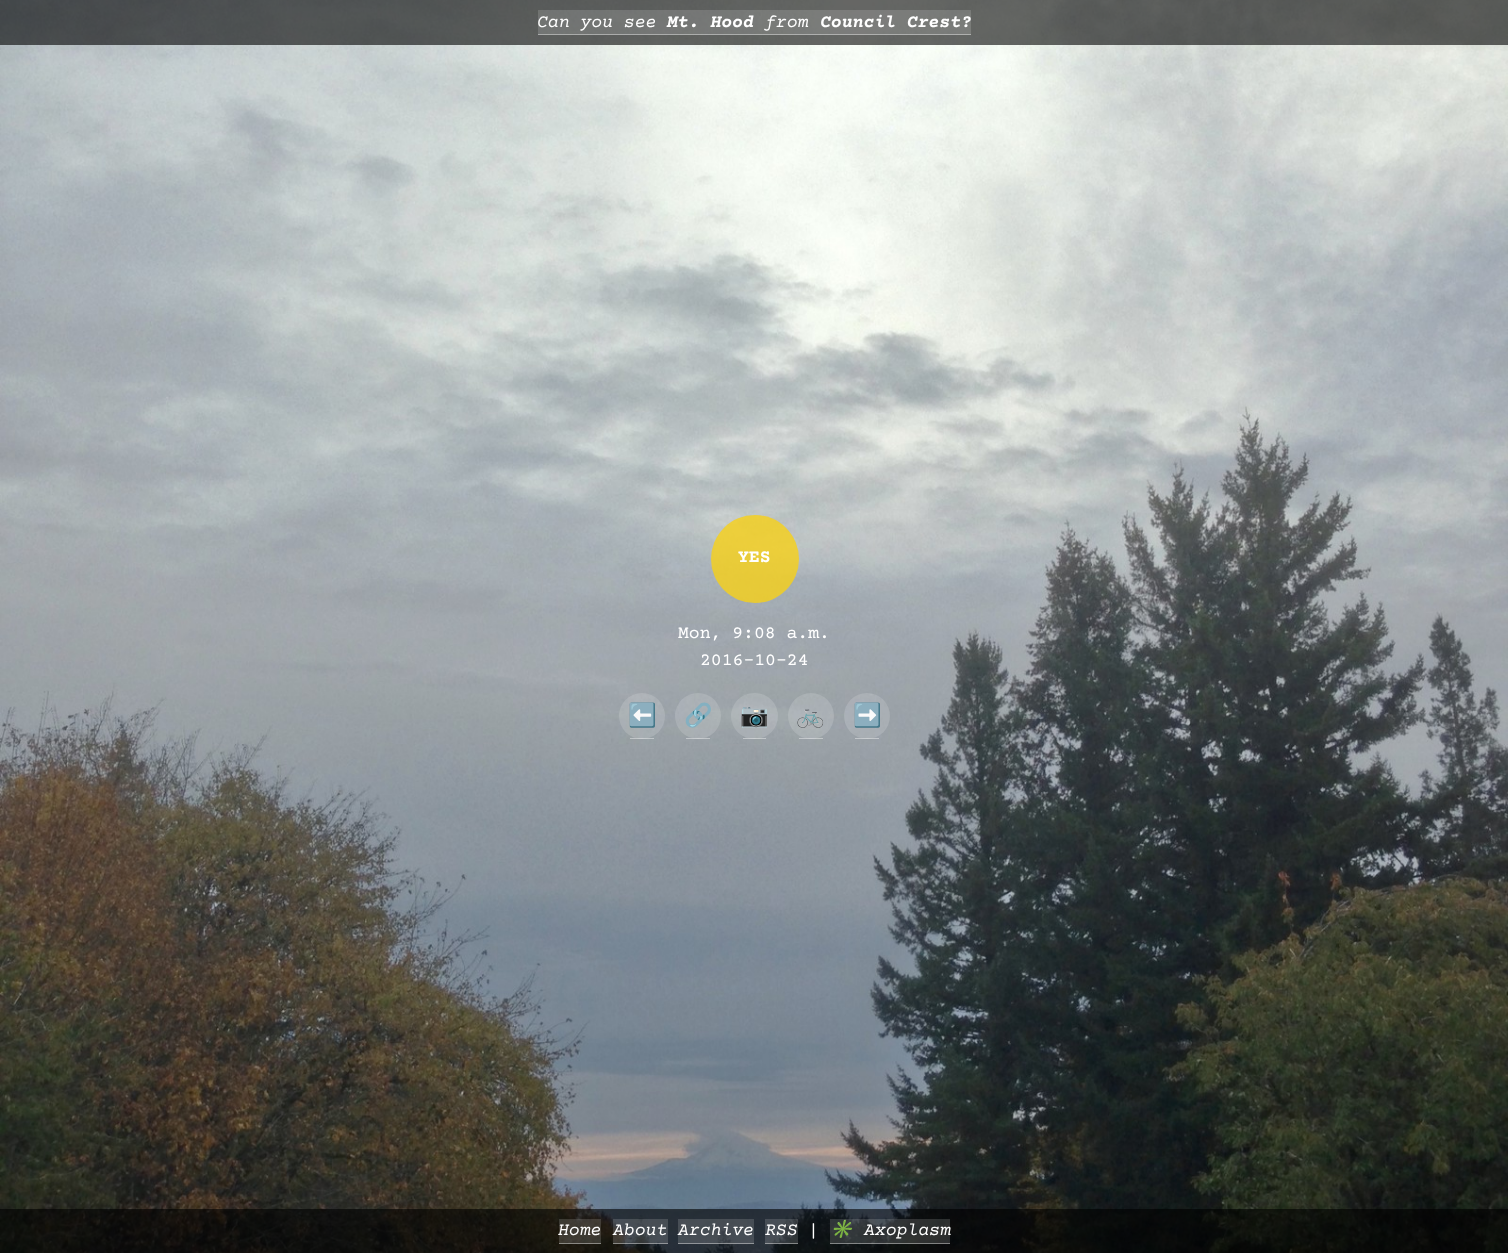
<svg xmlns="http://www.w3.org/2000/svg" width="1508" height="1253">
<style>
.a{font:italic 18.1px Courier Prime;fill:#fff}
.b{font:italic bold 18.1px Courier Prime;fill:#fff}
.c{font:bold 18.1px Courier Prime;fill:#fff}
.d{font:18.1px Courier Prime;fill:#fff}
.e{font:23px Noto Color Emoji;fill:#fff}
.f{font:italic 18.1px Noto Color Emoji;fill:#fff}
</style>
<rect width="100%" height="100%" fill="#fff"/>
<image href="1.png" x="0" y="0" width="1508" height="1253"/>
<path fill="#00000099" d="M0 0h1508v45H0z"/>
<path fill="#ffffff26" d="M538 10h130v25H538z"/>
<path fill="#ffffff66" d="M538 34h130v1H538z"/>
<path fill="#ffffff26" d="M668 10h87v25H668z"/>
<path fill="#ffffff66" d="M668 34h87v1H668z"/>
<path fill="#ffffff26" d="M755 10h65v25H755z"/>
<path fill="#ffffff66" d="M755 34h65v1H755z"/>
<path fill="#ffffff26" d="M820 10h151v25H820z"/>
<path fill="#ffffff66" d="M820 34h151v1H820z"/>
<circle fill="#f7d118cc" cx="755" cy="559" r="44"/>
<circle fill="#ffffff26" cx="642" cy="716" r="23"/>
<path fill="#ffffff66" d="M630 738h24v1H630z"/>
<circle fill="#ffffff26" cx="698" cy="716" r="23"/>
<path fill="#ffffff66" d="M686 738h24v1H686z"/>
<rect fill="#ffffff26" x="731" y="693" width="47" height="46" rx="23"/>
<path fill="#ffffff66" d="M743 738h23v1H743z"/>
<circle fill="#ffffff26" cx="811" cy="716" r="23"/>
<path fill="#ffffff66" d="M799 738h24v1H799z"/>
<circle fill="#ffffff26" cx="867" cy="716" r="23"/>
<path fill="#ffffff66" d="M855 738h24v1H855z"/>
<path fill="#00000099" d="M0 1209h1508v44H0z"/>
<path fill="#ffffff26" d="M559 1219h42v25H559z"/>
<path fill="#ffffff66" d="M559 1243h42v1H559z"/>
<path fill="#ffffff26" d="M613 1219h55v25H613z"/>
<path fill="#ffffff66" d="M613 1243h55v1H613z"/>
<path fill="#ffffff26" d="M678 1219h76v25H678z"/>
<path fill="#ffffff66" d="M678 1243h76v1H678z"/>
<path fill="#ffffff26" d="M765 1219h33v25H765z"/>
<path fill="#ffffff66" d="M765 1243h33v1H765z"/>
<path fill="#ffffff26" d="M830 1219h120v25H830z"/>
<path fill="#ffffff66" d="M830 1243h120v1H830z"/>
<text class="a" x="537" y="27">Can you see</text>
<text class="b" x="667" y="27">Mt. Hood</text>
<text class="a" x="765" y="27">from</text>
<text class="b" x="820" y="27">Council Crest?</text>
<text class="c" x="738" y="562">YES</text>
<text class="d" x="678" y="638">Mon, 9:08 a.m.</text>
<text class="d" x="700" y="665">2016-10-24</text>
<text class="e" x="628" y="723">⬅️</text>
<text class="e" x="684" y="723">🔗</text>
<text class="e" x="740" y="723">📷</text>
<text class="e" x="796" y="723">🚲</text>
<text class="e" x="853" y="723">➡️</text>
<text class="a" x="558" y="1235">Home</text>
<text class="a" x="613" y="1235">About</text>
<text class="a" x="678" y="1235">Archive</text>
<text class="a" x="765" y="1235">RSS</text>
<text class="d" x="808" y="1235">|</text>
<text class="f" x="830" y="1235">✳️</text>
<text class="a" x="864" y="1235">Axoplasm</text>
</svg>
